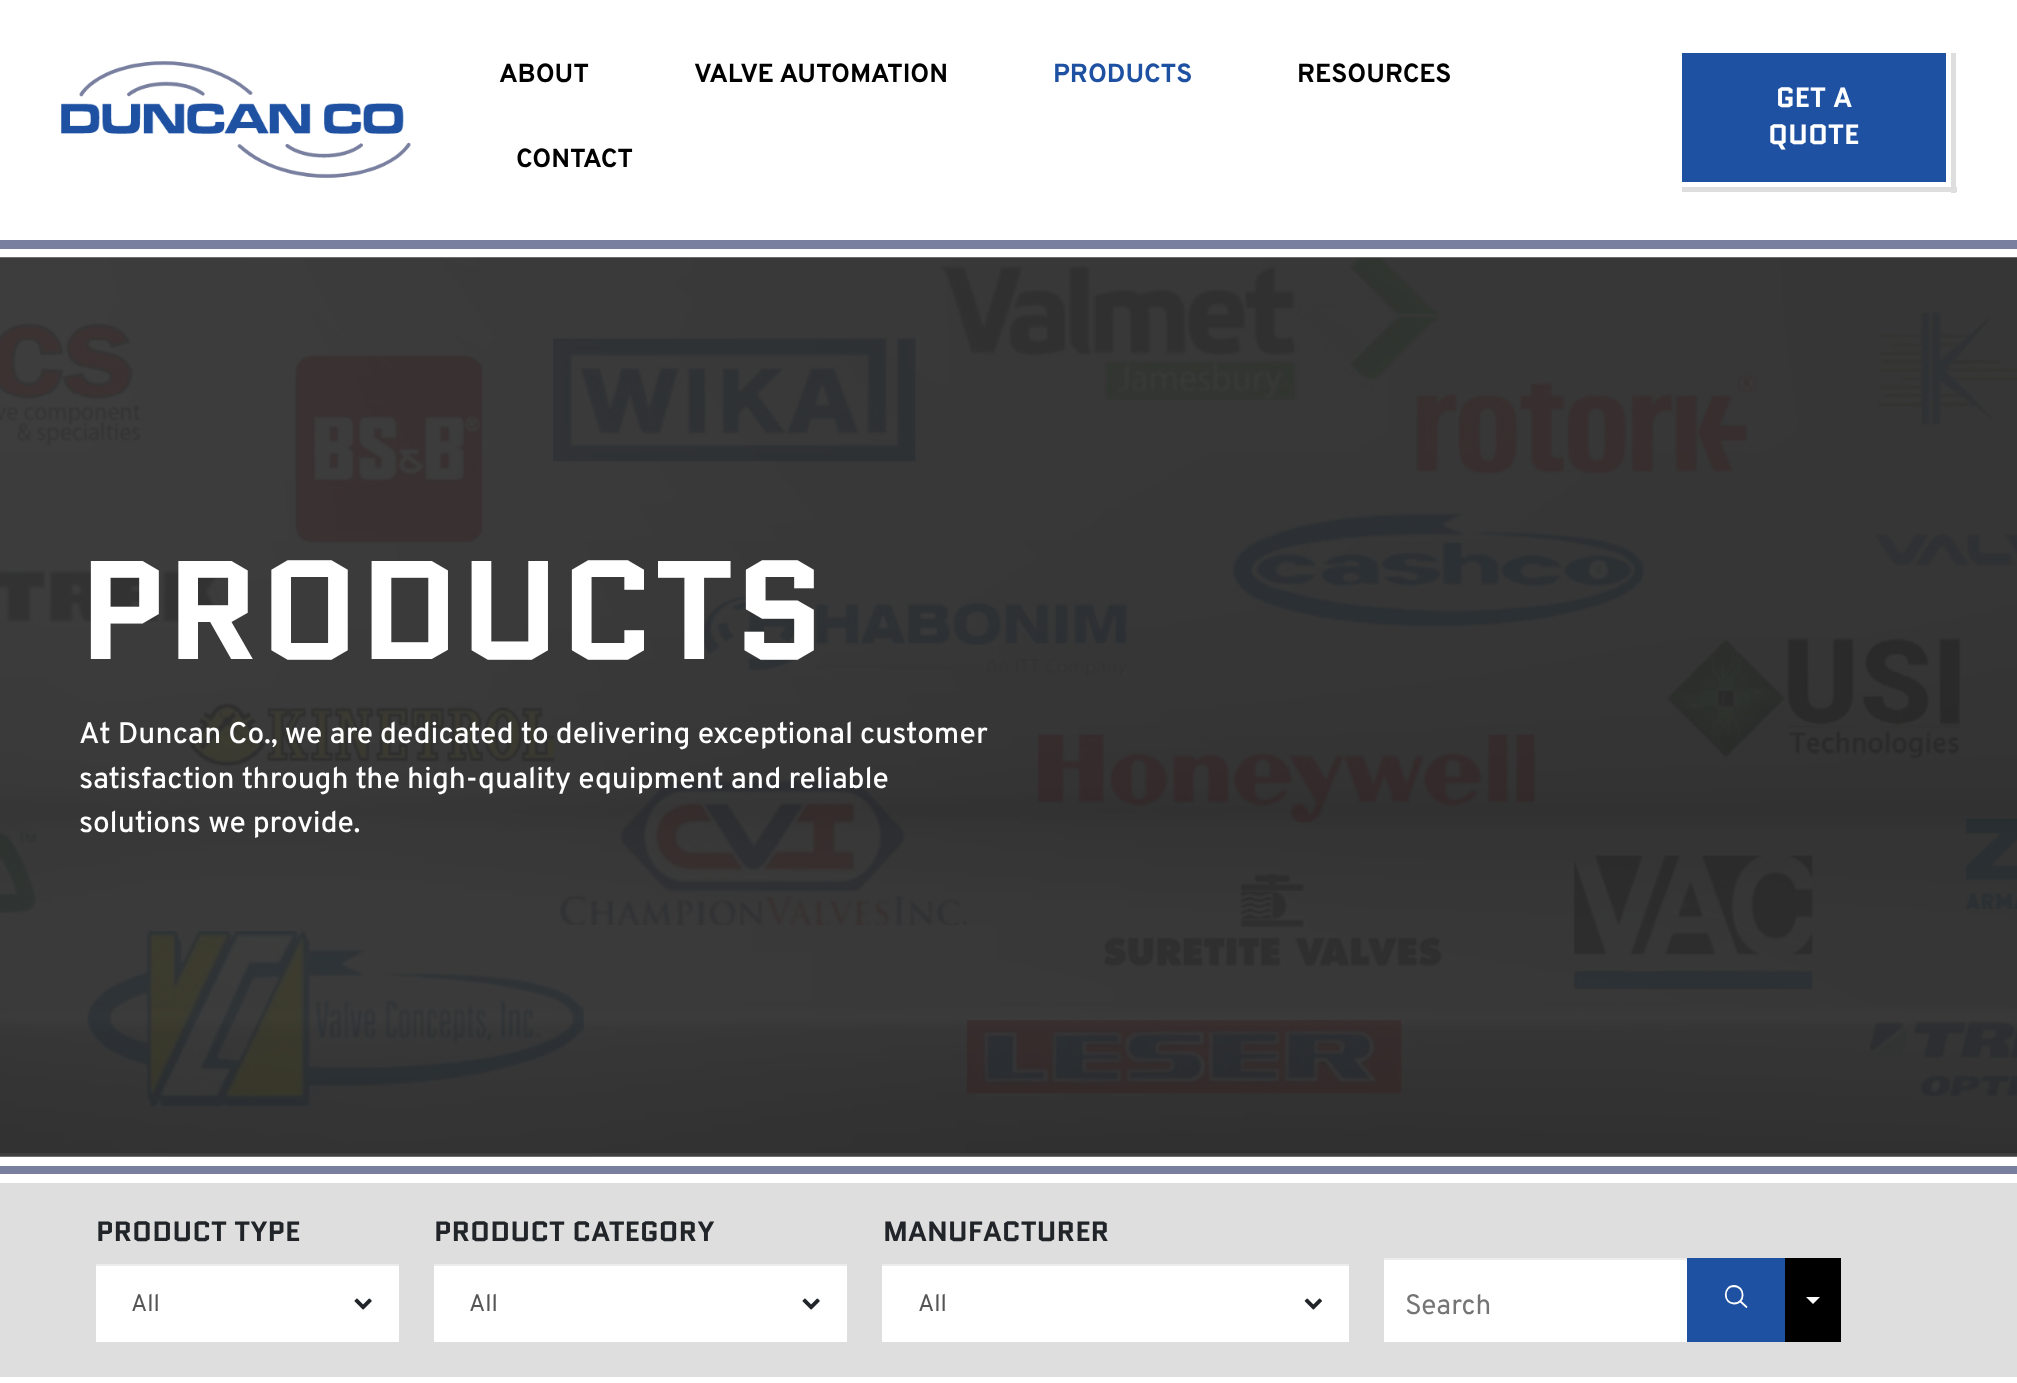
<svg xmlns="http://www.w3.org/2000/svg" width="2017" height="1383">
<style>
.a{font:bold 26.25px Overpass;fill:#000}
.b{font:bold 26.25px Overpass;fill:#1e51a2}
.c{font:bold 28px Quantico;fill:#fff}
.d{font:bold 140px Quantico;fill:#fff}
.e{font:500 29.75px Overpass;fill:#fff}
.f{font:bold 28px Quantico;fill:#212529}
.g{font:24px Overpass;fill:#555}
.h{font:28px Overpass;fill:#757575}
</style>
<rect width="100%" height="100%" fill="#fff"/>
<path fill="#787f9f" d="M0 240h2017v9H0z"/>
<image href="1.png" x="61" y="61" width="350" height="118"/>
<path fill="#dedede" d="M1951 53h5v140H1951z"/>
<path fill="#dedede" d="M1682 187h275v5H1682z"/>
<path fill="#1e51a2" d="M1682 53h264v129H1682z"/>
<image href="2.png" x="0" y="257" width="2017" height="900"/>
<path fill="#787f9f" d="M0 1166h2017v8H0z"/>
<path fill="#dedede" d="M0 1183h2017v194H0z"/>
<path fill="#fff" d="M96 1266h303v76H96z"/>
<path fill="#ececec" d="M96 1264h303v2H96z"/>
<image href="3.png" x="354" y="1298" width="18" height="12"/>
<path fill="#fff" d="M434 1266h413v76H434z"/>
<path fill="#ececec" d="M434 1264h413v2H434z"/>
<image href="3.png" x="802" y="1298" width="18" height="12"/>
<path fill="#fff" d="M882 1266h467v76H882z"/>
<path fill="#ececec" d="M882 1264h467v2H882z"/>
<image href="4.png" x="1304" y="1298" width="18" height="12"/>
<path fill="#fff" d="M1384 1260h303v82H1384z"/>
<path fill="#ececec" d="M1384 1258h303v2H1384z"/>
<path fill="#1e51a2" d="M1687 1258h98v84H1687z"/>
<path fill="none" stroke="#fff" stroke-width="1.8" d="M1734 1286c-11 0-11 17.5 0 17.5c11.5 0 11.5-17 0-17.5z"/>
<path fill="none" stroke="#fff" stroke-width="1.8" stroke-linecap="round" d="M1740.5 1301.5l6 5.5"/>
<path fill="#000" d="M1785 1258h56v84H1785z"/>
<path fill="#fff" d="M1806 1297h14l-7 7z"/>
<text class="a" x="499" y="82">ABOUT</text>
<text class="a" x="694" y="82">VALVE AUTOMATION</text>
<text class="b" x="1053" y="82">PRODUCTS</text>
<text class="a" x="1297" y="82">RESOURCES</text>
<text class="a" x="516" y="167">CONTACT</text>
<text class="c" x="1776" y="107">GET A</text>
<text class="c" x="1768" y="144">QUOTE</text>
<text class="d" x="79" y="659">PRODUCTS</text>
<text class="e" x="79" y="743">At Duncan Co., we are dedicated to delivering exceptional customer</text>
<text class="e" x="79" y="788">satisfaction through the high-quality equipment and reliable</text>
<text class="e" x="79" y="832">solutions we provide.</text>
<text class="f" x="96" y="1241">PRODUCT TYPE</text>
<text class="g" x="131" y="1311">All</text>
<text class="f" x="434" y="1241">PRODUCT CATEGORY</text>
<text class="g" x="469" y="1311">All</text>
<text class="f" x="883" y="1241">MANUFACTURER</text>
<text class="g" x="918" y="1311">All</text>
<text class="h" x="1405" y="1314">Search</text>
</svg>
